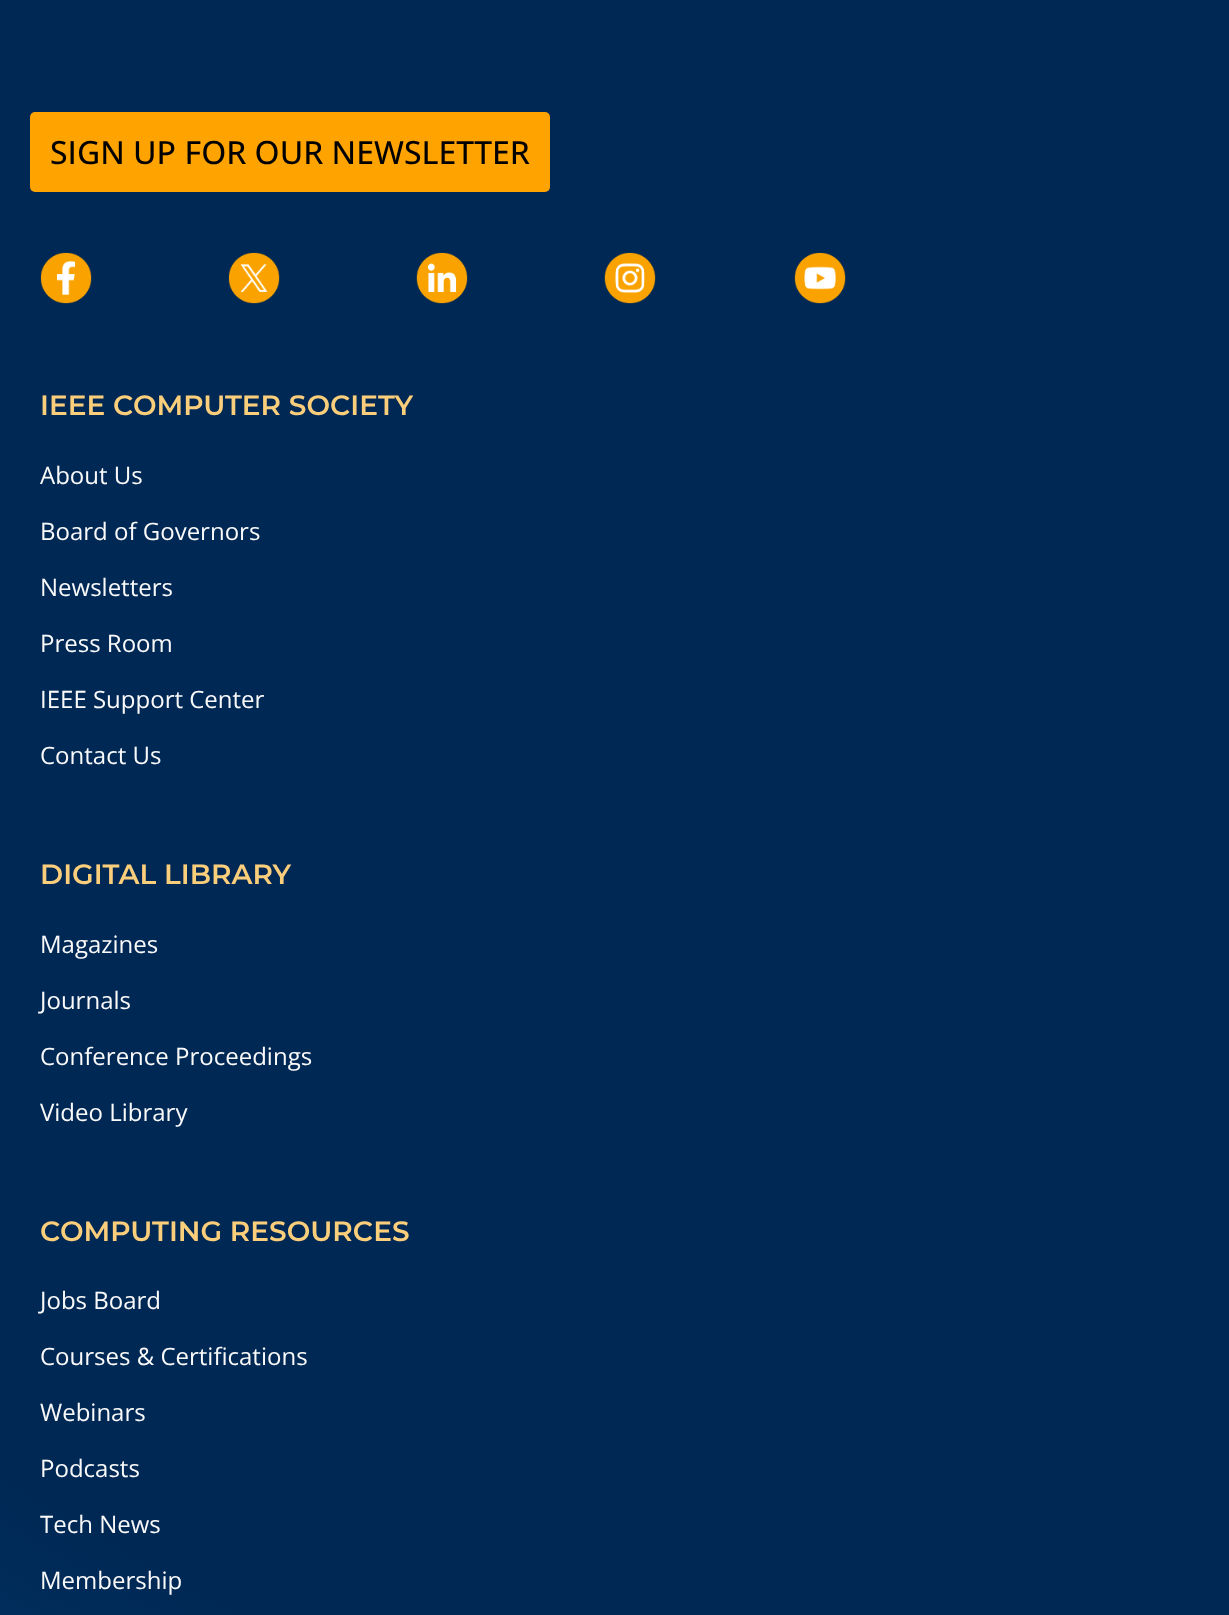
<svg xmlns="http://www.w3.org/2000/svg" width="1229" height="1615">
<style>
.a{font:500 32px Open Sans;fill:#000}
.b{font:600 28px Montserrat;fill:#fbce7b}
.c{font:24px Open Sans;fill:#fafafa}
</style>
<defs>
<linearGradient id="g1" gradientUnits="userSpaceOnUse" x1="-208" y1="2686" x2="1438" y2="-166"><stop offset="0" stop-color="#005990"/><stop offset="0.35" stop-color="#002855"/><stop offset="1" stop-color="#002855"/></linearGradient>
</defs>
<rect width="100%" height="100%" fill="#fff"/>
<path fill="url(#g1)" d="M0 0h1229v1615H0z"/>
<rect fill="#ffa300" x="30" y="112" width="520" height="80" rx="5"/>
<image href="1.png" x="40" y="252" width="52" height="52"/>
<image href="2.png" x="228" y="252" width="52" height="52"/>
<image href="3.png" x="416" y="252" width="52" height="52"/>
<image href="4.png" x="604" y="252" width="52" height="52"/>
<image href="5.png" x="794" y="252" width="52" height="52"/>
<text class="a" x="50" y="164">SIGN UP FOR OUR NEWSLETTER</text>
<text class="b" x="40" y="415">IEEE COMPUTER SOCIETY</text>
<text class="c" x="40" y="484">About Us</text>
<text class="c" x="40" y="540">Board of Governors</text>
<text class="c" x="40" y="596">Newsletters</text>
<text class="c" x="40" y="652">Press Room</text>
<text class="c" x="40" y="708">IEEE Support Center</text>
<text class="c" x="40" y="764">Contact Us</text>
<text class="b" x="40" y="884">DIGITAL LIBRARY</text>
<text class="c" x="40" y="953">Magazines</text>
<text class="c" x="40" y="1009">Journals</text>
<text class="c" x="40" y="1065">Conference Proceedings</text>
<text class="c" x="40" y="1121">Video Library</text>
<text class="b" x="40" y="1241">COMPUTING RESOURCES</text>
<text class="c" x="40" y="1309">Jobs Board</text>
<text class="c" x="40" y="1365">Courses &amp; Certifications</text>
<text class="c" x="40" y="1421">Webinars</text>
<text class="c" x="40" y="1477">Podcasts</text>
<text class="c" x="40" y="1533">Tech News</text>
<text class="c" x="40" y="1589">Membership</text>
</svg>
